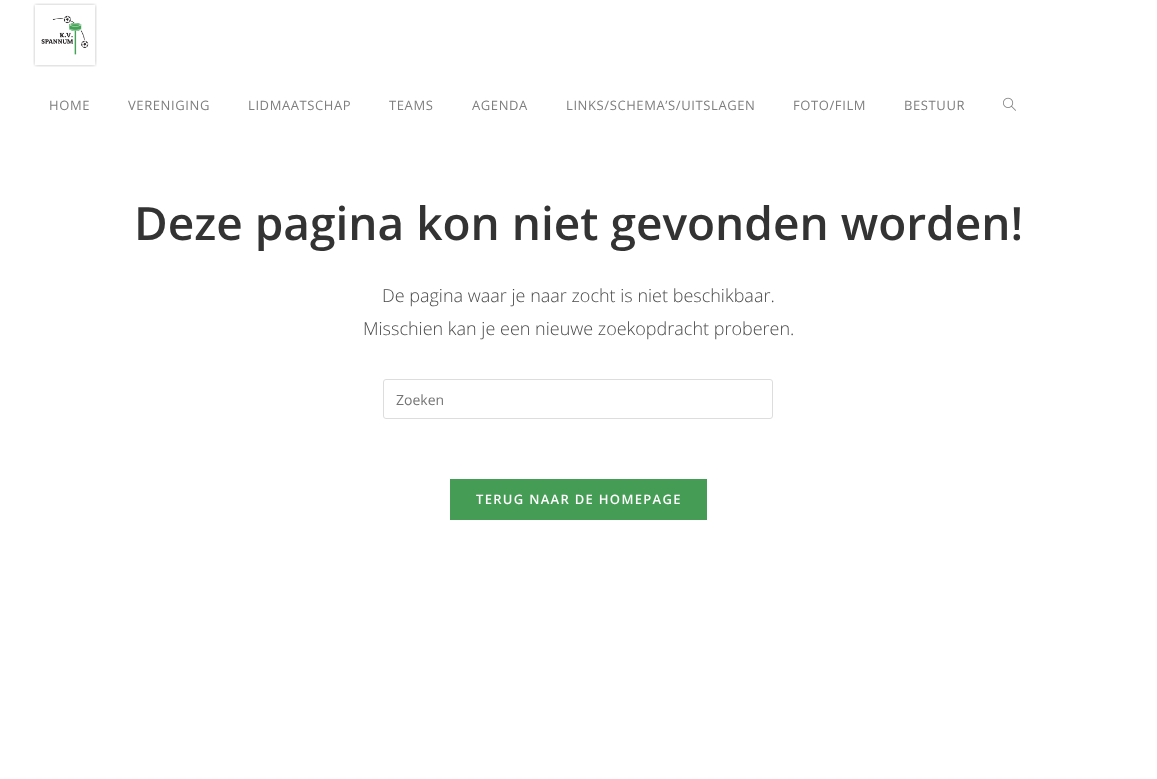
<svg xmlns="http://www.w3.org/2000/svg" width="1157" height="779">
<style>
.a{font:13px Open Sans;letter-spacing:0.6px;fill:#7e7e7e}
.b{font:600 46px Open Sans;fill:#333}
.c{font:300 18px Open Sans;fill:#4a4a4a}
.d{font:14px Open Sans;fill:#757575}
.e{font:600 13px Open Sans;letter-spacing:1.3px;fill:#fff}
</style>
<rect width="100%" height="100%" fill="#fff"/>
<image href="1.png" x="33" y="3" width="64" height="64"/>
<image href="2.png" x="1003" y="97" width="13" height="14"/>
<rect fill="none" stroke="#ddd" x="383.5" y="379.5" width="389" height="39" rx="2.5"/>
<path fill="#459c54" d="M450 479h257v41H450z"/>
<text class="a" x="49" y="110">HOME</text>
<text class="a" x="128" y="110">VERENIGING</text>
<text class="a" x="248" y="110">LIDMAATSCHAP</text>
<text class="a" x="389" y="110">TEAMS</text>
<text class="a" x="472" y="110">AGENDA</text>
<text class="a" x="566" y="110">LINKS/SCHEMA’S/UITSLAGEN</text>
<text class="a" x="793" y="110">FOTO/FILM</text>
<text class="a" x="904" y="110">BESTUUR</text>
<text class="b" x="134" y="240">Deze pagina kon niet gevonden worden!</text>
<text class="c" x="382" y="302">De pagina waar je naar zocht is niet beschikbaar.</text>
<text class="c" x="363" y="335">Misschien kan je een nieuwe zoekopdracht proberen.</text>
<text class="d" x="396" y="405">Zoeken</text>
<text class="e" x="476" y="504">TERUG NAAR DE HOMEPAGE</text>
</svg>
